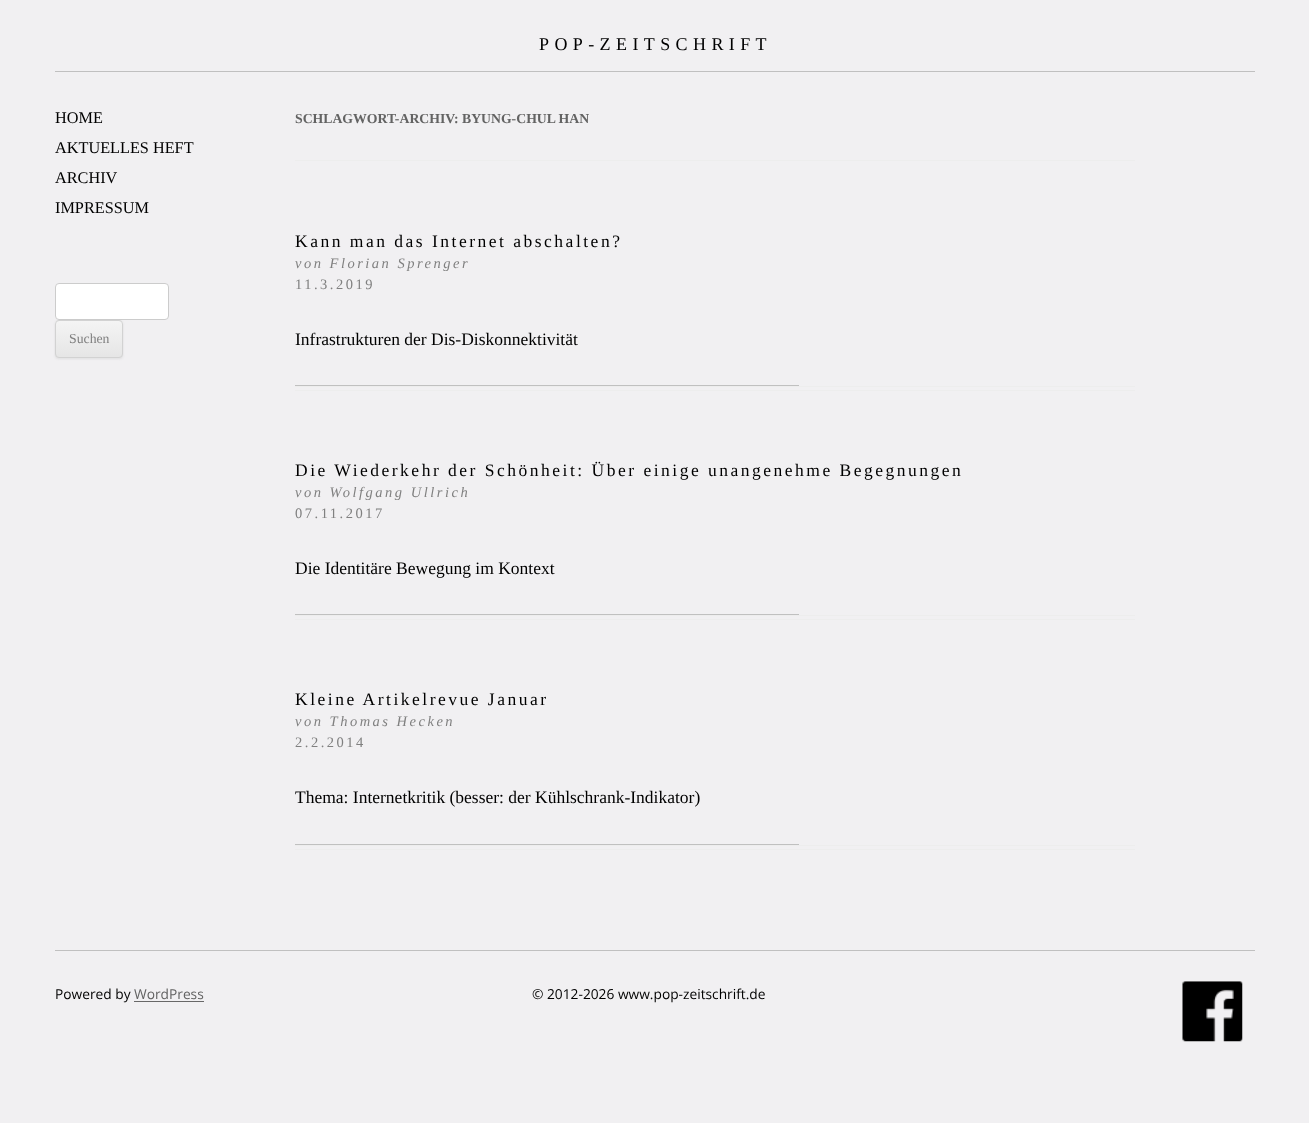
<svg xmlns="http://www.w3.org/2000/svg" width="1309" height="1123">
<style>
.a{font:18px Liberation Serif;letter-spacing:5.4px;fill:#000}
.b{font:16.25px Liberation Serif;fill:#000}
.c{font:13.75px Liberation Serif;fill:#808080}
.d{font:bold 13.75px Liberation Serif;fill:#636363}
.e{font:17.5px Liberation Serif;letter-spacing:2.5px;fill:#000}
.f{font:italic 14.5px Liberation Serif;letter-spacing:2.5px;fill:#808080}
.g{font:14.5px Liberation Serif;letter-spacing:2.5px;fill:#808080}
.h{font:17.5px Liberation Serif;fill:#000}
.i{font:13.75px Open Sans;fill:#000}
.j{font:13.75px Open Sans;fill:#636363}
</style>
<defs>
<clipPath id="clip1"><rect x="55" y="320" width="68" height="38" rx="4"/></clipPath>
<linearGradient id="g1" gradientUnits="userSpaceOnUse" x1="89" y1="321" x2="89" y2="356"><stop offset="0" stop-color="#f4f4f4"/><stop offset="1" stop-color="#e6e6e6"/></linearGradient>
</defs>
<rect width="100%" height="100%" fill="#f1f0f2"/>
<path fill="#c0c0c0" d="M55 71h1200v1H55z"/>
<rect fill="#fff" stroke="#ccc" x="55.5" y="283.5" width="113" height="36" rx="3.5"/>
<rect fill="#4040401a" filter="blur(1px)" x="55" y="321" width="68" height="38" rx="4"/>
<rect fill="#e6e6e6" x="55" y="320" width="68" height="38" rx="4"/>
<g clip-path="url(#clip1)">
<path fill="url(#g1)" d="M55 321h68v35H55z"/>
</g>
<rect fill="none" stroke="#d2d2d2" x="55.5" y="320.5" width="67" height="37" rx="3.5"/>
<path fill="#ededed" d="M295 160h840v1H295z"/>
<path fill="#ededed" d="M295 386h840v1H295z"/>
<path fill="#ededed" d="M295 390h840v1H295z"/>
<path fill="#c0c0c0" d="M295 385h504v1H295z"/>
<path fill="#ededed" d="M295 615h840v1H295z"/>
<path fill="#ededed" d="M295 619h840v1H295z"/>
<path fill="#c0c0c0" d="M295 614h504v1H295z"/>
<path fill="#ededed" d="M295 845h840v1H295z"/>
<path fill="#ededed" d="M295 849h840v1H295z"/>
<path fill="#c0c0c0" d="M295 844h504v1H295z"/>
<path fill="#c0c0c0" d="M55 950h1200v1H55z"/>
<path fill="#686868" d="M134 1001h70v1H134z"/>
<image href="1.png" x="1182" y="981" width="61" height="61"/>
<text class="a" x="539" y="50">POP-ZEITSCHRIFT</text>
<text class="b" x="55" y="123">HOME</text>
<text class="b" x="55" y="153">AKTUELLES HEFT</text>
<text class="b" x="55" y="183">ARCHIV</text>
<text class="b" x="55" y="213">IMPRESSUM</text>
<text class="c" x="69" y="343">Suchen</text>
<text class="d" x="295" y="123">SCHLAGWORT-ARCHIV: BYUNG-CHUL HAN</text>
<text class="e" x="295" y="247">Kann man das Internet abschalten?</text>
<text class="f" x="295" y="268">von Florian Sprenger</text>
<text class="g" x="295" y="289">11.3.2019</text>
<text class="h" x="295" y="345">Infrastrukturen der Dis-Diskonnektivität</text>
<text class="e" x="295" y="476">Die Wiederkehr der Schönheit: Über einige unangenehme Begegnungen</text>
<text class="f" x="295" y="497">von Wolfgang Ullrich</text>
<text class="g" x="295" y="518">07.11.2017</text>
<text class="h" x="295" y="574">Die Identitäre Bewegung im Kontext</text>
<text class="e" x="295" y="705">Kleine Artikelrevue Januar</text>
<text class="f" x="295" y="726">von Thomas Hecken</text>
<text class="g" x="295" y="747">2.2.2014</text>
<text class="h" x="295" y="803">Thema: Internetkritik (besser: der Kühlschrank-Indikator)</text>
<text class="i" x="55" y="999">Powered by</text>
<text class="j" x="134" y="999">WordPress</text>
<text class="i" x="532" y="999">© 2012-2026 www.pop-zeitschrift.de</text>
</svg>
